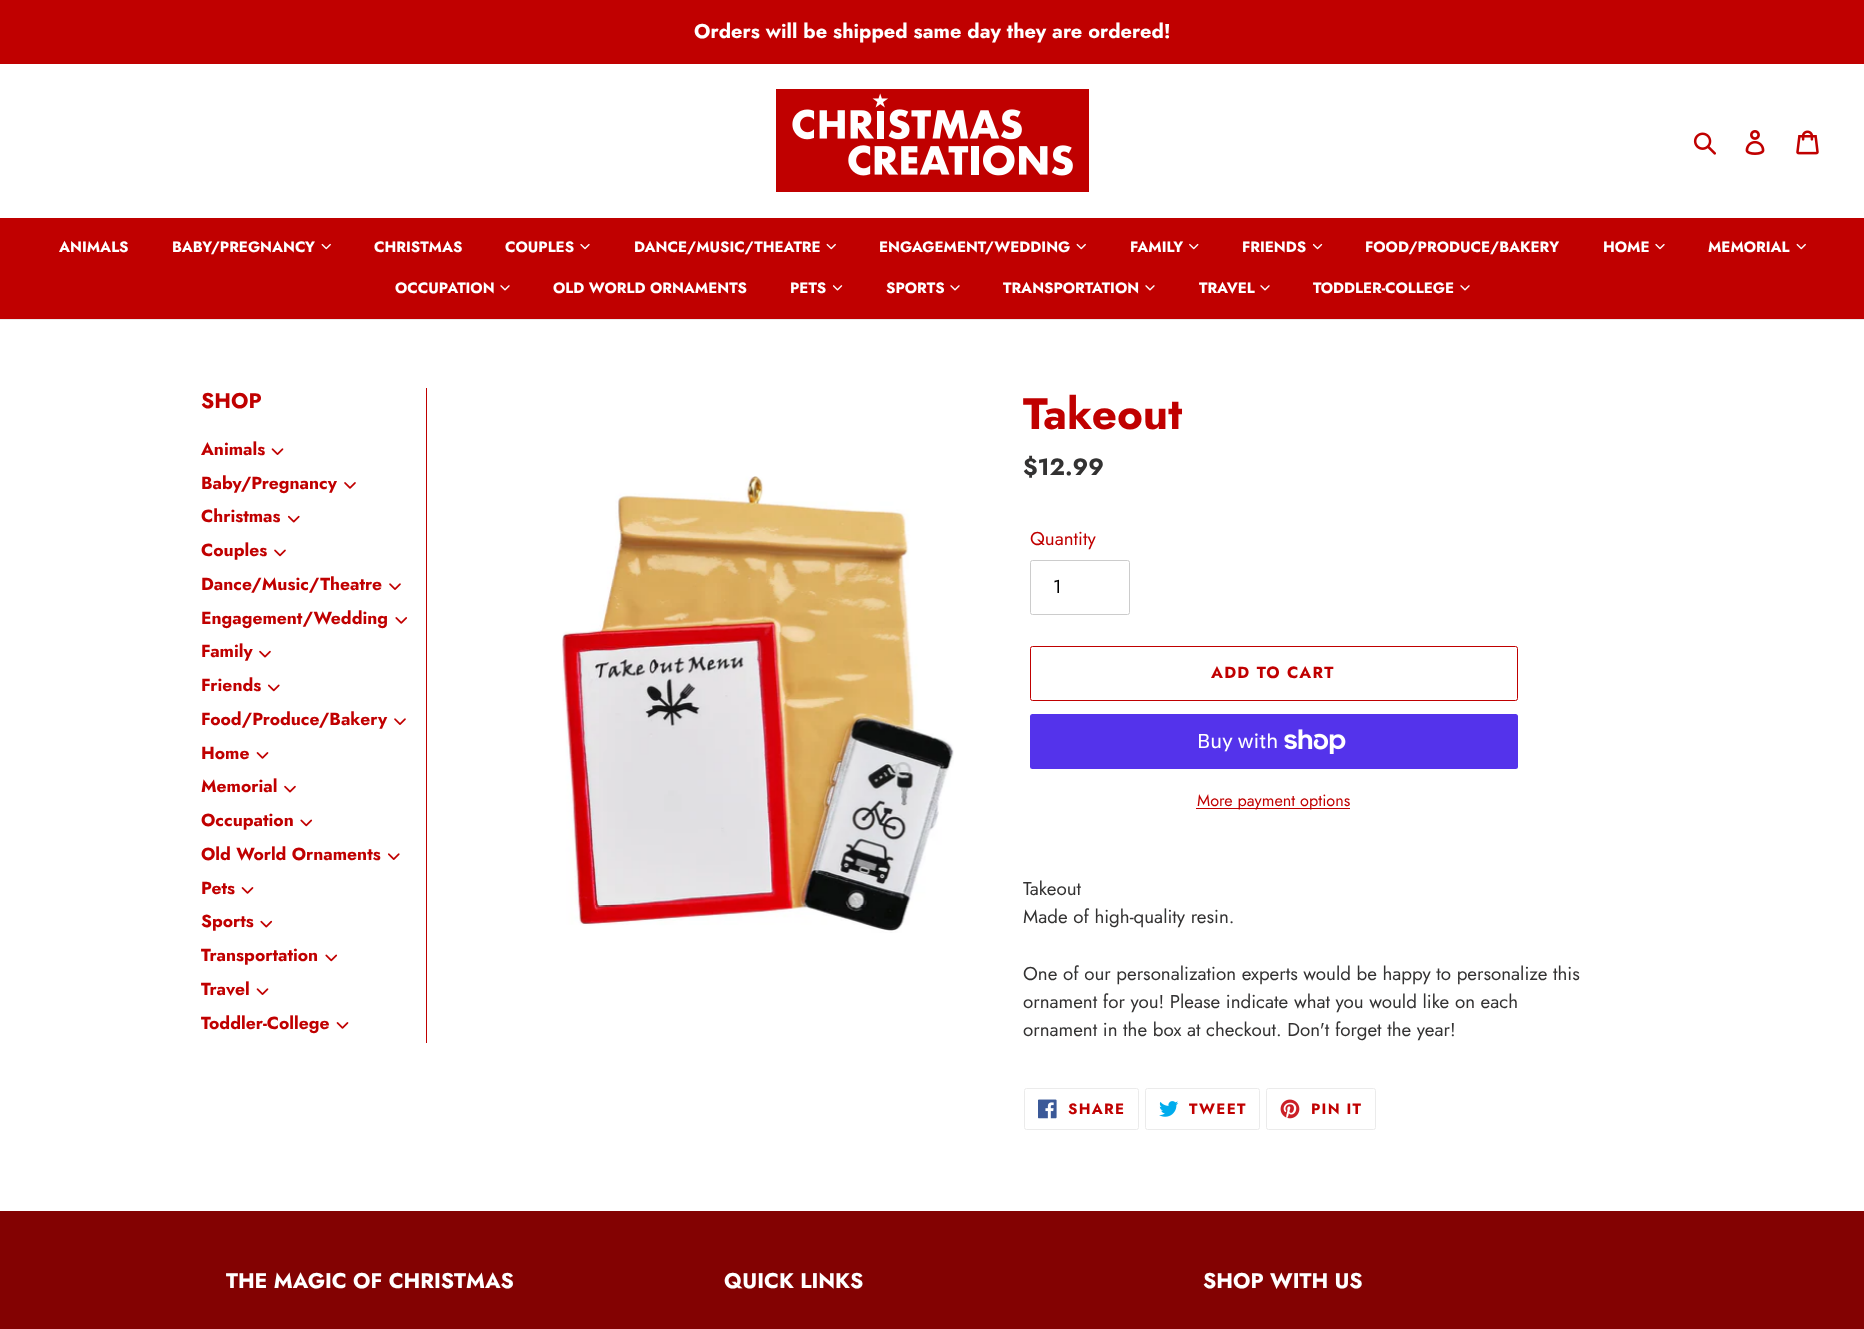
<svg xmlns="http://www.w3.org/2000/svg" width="1864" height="1329">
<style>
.a{font:bold 20px Jost;fill:#fff}
.b{font:bold 15px Jost;fill:#fff}
.c{font:bold 21.25px Jost;fill:#c00000}
.d{font:bold 17.5px Jost;fill:#c00000}
.e{font:bold 44px Jost;fill:#c00000}
.f{font:bold 23.5px Jost;fill:#333232}
.g{font:18.75px Jost;fill:#c00000}
.h{font:18.75px Jost;fill:#000}
.i{font:bold 16.25px Jost;letter-spacing:1.25px;fill:#c00000}
.j{font:20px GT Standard;fill:#fff}
.k{font:16.25px Jost;fill:#c00000}
.l{font:18.75px Jost;fill:#333232}
.m{font:bold 15px Jost;letter-spacing:1.25px;fill:#c00000}
.n{font:bold 21.25px Jost;fill:#fff}
</style>
<rect width="100%" height="100%" fill="#fff"/>
<path fill="#c00000" d="M0 0h1864v64H0z"/>
<image href="1.png" x="776" y="89" width="313" height="103"/>
<image href="2.png" x="1693" y="132" width="23" height="23"/>
<image href="3.png" x="1745" y="130" width="20" height="25"/>
<image href="4.png" x="1796" y="130" width="23" height="25"/>
<path fill="#c00000" d="M0 218h1864v101H0z"/>
<path fill="#ebebeb" d="M0 319h1864v1H0z"/>
<image href="5.png" x="321" y="243" width="10" height="7"/>
<image href="6.png" x="580" y="244" width="10" height="6"/>
<image href="5.png" x="826" y="243" width="10" height="7"/>
<image href="5.png" x="1076" y="243" width="10" height="7"/>
<image href="7.png" x="1189" y="243" width="10" height="7"/>
<image href="8.png" x="1313" y="243" width="10" height="7"/>
<image href="6.png" x="1655" y="244" width="10" height="6"/>
<image href="5.png" x="1796" y="243" width="10" height="7"/>
<image href="9.png" x="500" y="285" width="10" height="6"/>
<image href="10.png" x="833" y="285" width="10" height="6"/>
<image href="9.png" x="950" y="285" width="10" height="6"/>
<image href="9.png" x="1145" y="285" width="10" height="6"/>
<image href="9.png" x="1260" y="285" width="10" height="6"/>
<image href="9.png" x="1460" y="285" width="10" height="6"/>
<path fill="#c00000" d="M426 388h1v655H426z"/>
<image href="11.png" x="271" y="448" width="13" height="7"/>
<image href="12.png" x="344" y="482" width="12" height="7"/>
<image href="13.png" x="288" y="515" width="12" height="8"/>
<image href="14.png" x="274" y="549" width="12" height="8"/>
<image href="15.png" x="389" y="583" width="12" height="7"/>
<image href="16.png" x="395" y="617" width="13" height="7"/>
<image href="17.png" x="259" y="650" width="12" height="8"/>
<image href="18.png" x="268" y="684" width="12" height="8"/>
<image href="15.png" x="394" y="718" width="12" height="7"/>
<image href="19.png" x="256" y="752" width="13" height="7"/>
<image href="17.png" x="284" y="785" width="12" height="8"/>
<image href="20.png" x="300" y="819" width="13" height="8"/>
<image href="21.png" x="388" y="853" width="12" height="7"/>
<image href="19.png" x="241" y="887" width="13" height="7"/>
<image href="22.png" x="260" y="920" width="13" height="8"/>
<image href="20.png" x="325" y="954" width="13" height="8"/>
<image href="11.png" x="256" y="988" width="13" height="7"/>
<image href="19.png" x="336" y="1022" width="13" height="7"/>
<image href="23.png" x="562" y="476" width="392" height="457"/>
<rect fill="none" stroke="#ccc" x="1030.5" y="560.5" width="99" height="54" rx="2"/>
<rect fill="none" stroke="#c00000" x="1030.5" y="646.5" width="487" height="54" rx="2"/>
<rect fill="#5433eb" x="1030" y="714" width="488" height="55" rx="2.5"/>
<image href="24.png" x="1284" y="729" width="62" height="25"/>
<path fill="#c00000" d="M1196 808h154v1H1196z"/>
<rect fill="none" stroke="#ebebeb" x="1024.5" y="1088.5" width="114" height="41" rx="2"/>
<image href="25.png" x="1038" y="1099" width="19" height="20"/>
<rect fill="none" stroke="#ebebeb" x="1145.5" y="1088.5" width="114" height="41" rx="2"/>
<image href="26.png" x="1159" y="1101" width="20" height="16"/>
<rect fill="none" stroke="#ebebeb" x="1266.5" y="1088.5" width="109" height="41" rx="2"/>
<image href="27.png" x="1280" y="1099" width="20" height="20"/>
<path fill="#830202" d="M0 1211h1864v118H0z"/>
<text class="a" x="694" y="38">Orders will be shipped same day they are ordered!</text>
<text class="b" x="59" y="252">ANIMALS</text>
<text class="b" x="172" y="252">BABY/PREGNANCY</text>
<text class="b" x="374" y="252">CHRISTMAS</text>
<text class="b" x="505" y="252">COUPLES</text>
<text class="b" x="634" y="252">DANCE/MUSIC/THEATRE</text>
<text class="b" x="879" y="252">ENGAGEMENT/WEDDING</text>
<text class="b" x="1130" y="252">FAMILY</text>
<text class="b" x="1242" y="252">FRIENDS</text>
<text class="b" x="1365" y="252">FOOD/PRODUCE/BAKERY</text>
<text class="b" x="1603" y="252">HOME</text>
<text class="b" x="1708" y="252">MEMORIAL</text>
<text class="b" x="395" y="293">OCCUPATION</text>
<text class="b" x="553" y="293">OLD WORLD ORNAMENTS</text>
<text class="b" x="790" y="293">PETS</text>
<text class="b" x="886" y="293">SPORTS</text>
<text class="b" x="1003" y="293">TRANSPORTATION</text>
<text class="b" x="1199" y="293">TRAVEL</text>
<text class="b" x="1313" y="293">TODDLER-COLLEGE</text>
<text class="c" x="201" y="408">SHOP</text>
<text class="d" x="201" y="455">Animals</text>
<text class="d" x="201" y="489">Baby/Pregnancy</text>
<text class="d" x="201" y="522">Christmas</text>
<text class="d" x="201" y="556">Couples</text>
<text class="d" x="201" y="590">Dance/Music/Theatre</text>
<text class="d" x="201" y="624">Engagement/Wedding</text>
<text class="d" x="201" y="657">Family</text>
<text class="d" x="201" y="691">Friends</text>
<text class="d" x="201" y="725">Food/Produce/Bakery</text>
<text class="d" x="201" y="759">Home</text>
<text class="d" x="201" y="792">Memorial</text>
<text class="d" x="201" y="826">Occupation</text>
<text class="d" x="201" y="860">Old World Ornaments</text>
<text class="d" x="201" y="894">Pets</text>
<text class="d" x="201" y="927">Sports</text>
<text class="d" x="201" y="961">Transportation</text>
<text class="d" x="201" y="995">Travel</text>
<text class="d" x="201" y="1029">Toddler-College</text>
<text class="e" x="1023" y="429">Takeout</text>
<text class="f" x="1023" y="475">$12.99</text>
<text class="g" x="1030" y="545">Quantity</text>
<text class="h" x="1053" y="593">1</text>
<text class="i" x="1211" y="678">ADD TO CART</text>
<text class="j" x="1197" y="748">Buy with</text>
<text class="k" x="1197" y="806">More payment options</text>
<text class="l" x="1023" y="895">Takeout</text>
<text class="l" x="1023" y="923">Made of high-quality resin.</text>
<text class="l" x="1023" y="980">One of our personalization experts would be happy to personalize this</text>
<text class="l" x="1023" y="1008">ornament for you! Please indicate what you would like on each</text>
<text class="l" x="1023" y="1036">ornament in the box at checkout. Don't forget the year!</text>
<text class="m" x="1068" y="1114">SHARE</text>
<text class="m" x="1189" y="1114">TWEET</text>
<text class="m" x="1311" y="1114">PIN IT</text>
<text class="n" x="226" y="1288">THE MAGIC OF CHRISTMAS</text>
<text class="n" x="724" y="1288">QUICK LINKS</text>
<text class="n" x="1203" y="1288">SHOP WITH US</text>
</svg>
